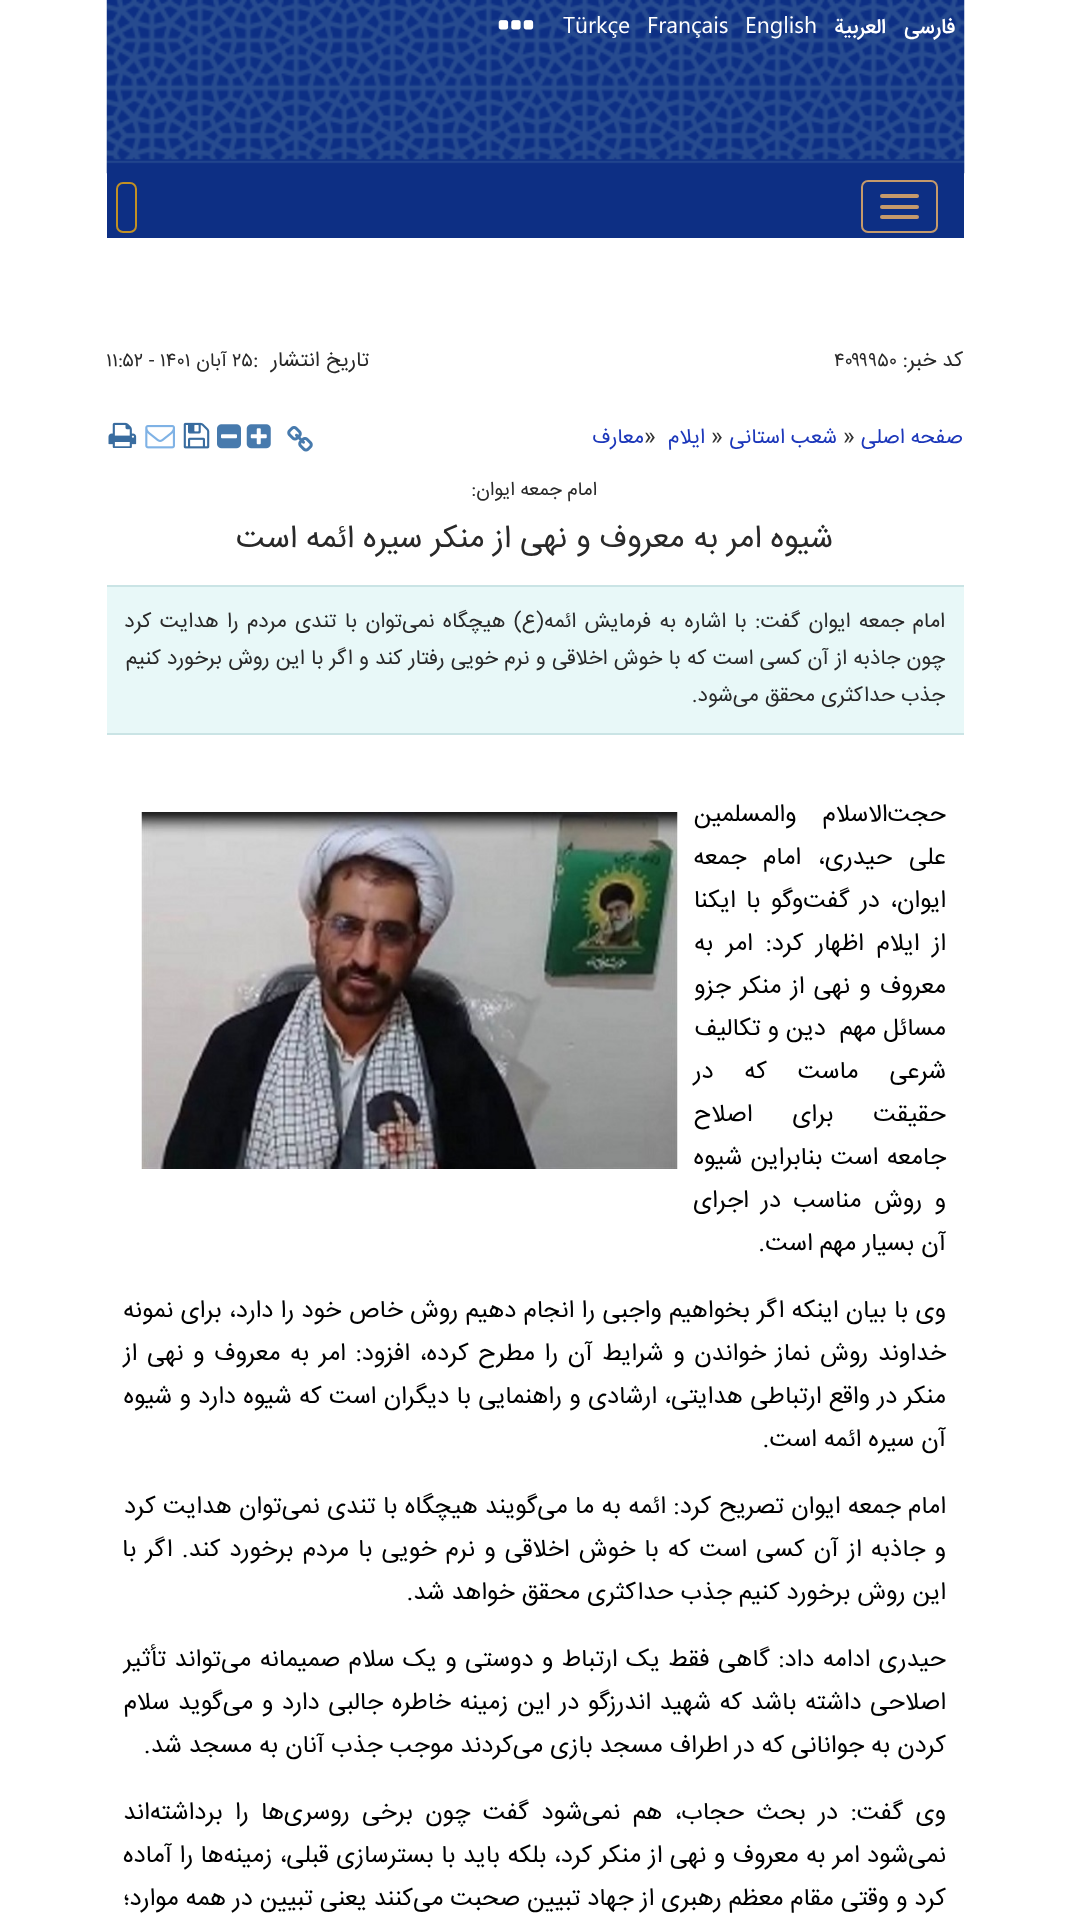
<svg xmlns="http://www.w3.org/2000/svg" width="1068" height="1932">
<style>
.a{font:500 21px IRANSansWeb;direction:rtl;fill:#fff}
.b{font:23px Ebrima;fill:#fff}
.c{font:21px IRANSansWeb;direction:rtl;fill:#292929}
.d{font:19.25px IRANSansWeb;fill:#292929}
.e{font:21px IRANSansWeb;fill:#292929}
.f{font:19.25px IRANSansWeb;direction:rtl;fill:#292929}
.g{font:21px IRANSansWeb;direction:rtl;fill:#1c37ba}
.h{font:23px IRANSansWeb;fill:#333}
.i{font:31.5px IRANSansWeb;direction:rtl;fill:#292929}
.j{font:24.5px IRANSansWeb;direction:rtl;fill:#000}
</style>
<rect width="100%" height="100%" fill="#fff"/>
<image href="1.png" x="106" y="0" width="859" height="174"/>
<image href="2.png" x="498" y="20" width="36" height="10"/>
<path fill="#0d2f84" d="M107 173h857v65H107z"/>
<rect fill="none" stroke="#c59a6b" stroke-width="2" x="862" y="181" width="75" height="51" rx="6"/>
<rect fill="#c59a6b" x="880" y="194" width="39" height="4" rx="2"/>
<rect fill="#c59a6b" x="880" y="205" width="39" height="4" rx="2"/>
<rect fill="#c59a6b" x="880" y="215" width="39" height="4" rx="2"/>
<rect fill="none" stroke="#c19024" stroke-width="2" x="117" y="183" width="19" height="49" rx="6"/>
<image href="3.png" x="287" y="426" width="26" height="26"/>
<image href="4.png" x="246" y="424" width="25" height="25"/>
<image href="5.png" x="217" y="424" width="24" height="25"/>
<image href="6.png" x="183" y="422" width="27" height="27"/>
<image href="7.png" x="145" y="425" width="30" height="24"/>
<image href="8.png" x="108" y="422" width="29" height="26"/>
<path fill="#e8f8f8" d="M107 587h857v146H107z"/>
<path fill="#cae4e5" d="M107 585h857v2H107z"/>
<path fill="#cae4e5" d="M107 733h857v2H107z"/>
<image href="9.png" x="141" y="812" width="537" height="357"/>
<text class="a" x="955" y="33">فارسی</text>
<text class="a" x="886" y="33">العربیة</text>
<text class="b" x="745" y="33">English</text>
<text class="b" x="647" y="33">Français</text>
<text class="b" x="563" y="33">Türkçe</text>
<text class="c" x="963" y="366">کد خبر:</text>
<text class="d" x="834" y="366">۴۰۹۹۹۵۰</text>
<text class="c" x="369" y="366">تاریخ انتشار</text>
<text class="e" x="253" y="366">:</text>
<text class="d" x="232" y="366">۲۵</text>
<text class="f" x="227" y="366">آبان</text>
<text class="d" x="106" y="366">۱۱:۵۲ - ۱۴۰۱</text>
<text class="g" x="963" y="443">صفحه اصلی</text>
<text class="h" x="843" y="443">»</text>
<text class="g" x="837" y="443">شعب استانی</text>
<text class="h" x="711" y="443">»</text>
<text class="g" x="705" y="443">ایلام</text>
<text class="h" x="644" y="443">»</text>
<text class="g" x="644" y="443">معارف</text>
<text class="f" x="597" y="495">امام جمعه ایوان:</text>
<text class="i" x="833" y="547">شیوه‌ امر به معروف و نهی از منکر سیره ائمه است</text>
<text class="c" x="945" y="627" word-spacing="2.4">امام جمعه ایوان گفت: با اشاره به فرمایش ائمه(ع) هیچگاه نمی‌توان با تندی مردم را هدایت کرد</text>
<text class="c" x="945" y="664" word-spacing="0.4">چون جاذبه از آن کسی است که با خوش اخلاقی و نرم خویی رفتار کند و اگر با این روش برخورد کنیم</text>
<text class="c" x="945" y="701">جذب حداکثری محقق می‌شود.</text>
<text class="j" x="946" y="821" word-spacing="19">حجت‌الاسلام والمسلمین</text>
<text class="j" x="946" y="864" word-spacing="10">علی حیدری، امام جمعه</text>
<text class="j" x="946" y="907" word-spacing="3.5">ایوان، در گفت‌وگو با ایکنا</text>
<text class="j" x="946" y="950" word-spacing="5.75">از ایلام اظهار کرد: امر به</text>
<text class="j" x="946" y="993" word-spacing="2.25">معروف و نهی از منکر جزو</text>
<text class="j" xml:space="preserve" x="946" y="1035">مسائل مهم  دین و تکالیف</text>
<text class="j" x="946" y="1078" word-spacing="24">شرعی ماست که در</text>
<text class="j" x="946" y="1121" word-spacing="33">حقیقت برای اصلاح</text>
<text class="j" x="946" y="1164" word-spacing="1.5">جامعه است بنابراین شیوه</text>
<text class="j" x="946" y="1207" word-spacing="5.5">و روش مناسب در اجرای</text>
<text class="j" x="946" y="1250">آن بسیار مهم است.</text>
<text class="j" x="946" y="1317" word-spacing="0.4">وی با بیان اینکه اگر بخواهیم واجبی را انجام دهیم روش خاص خود را دارد، برای نمونه</text>
<text class="j" x="946" y="1360" word-spacing="2.75">خداوند روش نماز خواندن و شرایط آن را مطرح کرده، افزود: امر به معروف و نهی از</text>
<text class="j" x="946" y="1403" word-spacing="0.4">منکر در واقع ارتباطی هدایتی، ارشادی و راهنمایی با دیگران است که شیوه دارد و شیوه</text>
<text class="j" x="946" y="1446">آن سیره ائمه است.</text>
<text class="j" x="946" y="1513" word-spacing="0.5">امام جمعه ایوان تصریح کرد: ائمه به ما می‌گویند هیچگاه با تندی نمی‌توان هدایت کرد</text>
<text class="j" x="946" y="1556" word-spacing="2.25">و جاذبه از آن کسی است که با خوش اخلاقی و نرم خویی با مردم برخورد کند. اگر با</text>
<text class="j" x="946" y="1599">این روش برخورد کنیم جذب حداکثری محقق خواهد شد.</text>
<text class="j" x="946" y="1666" word-spacing="1.5">حیدری ادامه داد: گاهی فقط یک ارتباط و دوستی و یک سلام صمیمانه می‌تواند تأثیر</text>
<text class="j" x="946" y="1709" word-spacing="1.75">اصلاحی داشته باشد که شهید اندرزگو در این زمینه خاطره جالبی دارد و می‌گوید سلام</text>
<text class="j" x="946" y="1752">کردن به جوانانی که در اطراف مسجد بازی می‌کردند موجب جذب آنان به مسجد شد.</text>
<text class="j" x="946" y="1819" word-spacing="5.5">وی گفت: در بحث حجاب، هم نمی‌شود گفت چون برخی روسری‌ها را برداشته‌اند</text>
<text class="j" x="946" y="1862" word-spacing="0.5">نمی‌شود امر به معروف و نهی از منکر کرد، بلکه باید با بسترسازی قبلی، زمینه‌ها را آماده</text>
<text class="j" x="946" y="1905">کرد و وقتی مقام معظم رهبری از جهاد تبیین صحبت می‌کنند یعنی تبیین در همه‌ موارد؛</text>
</svg>
